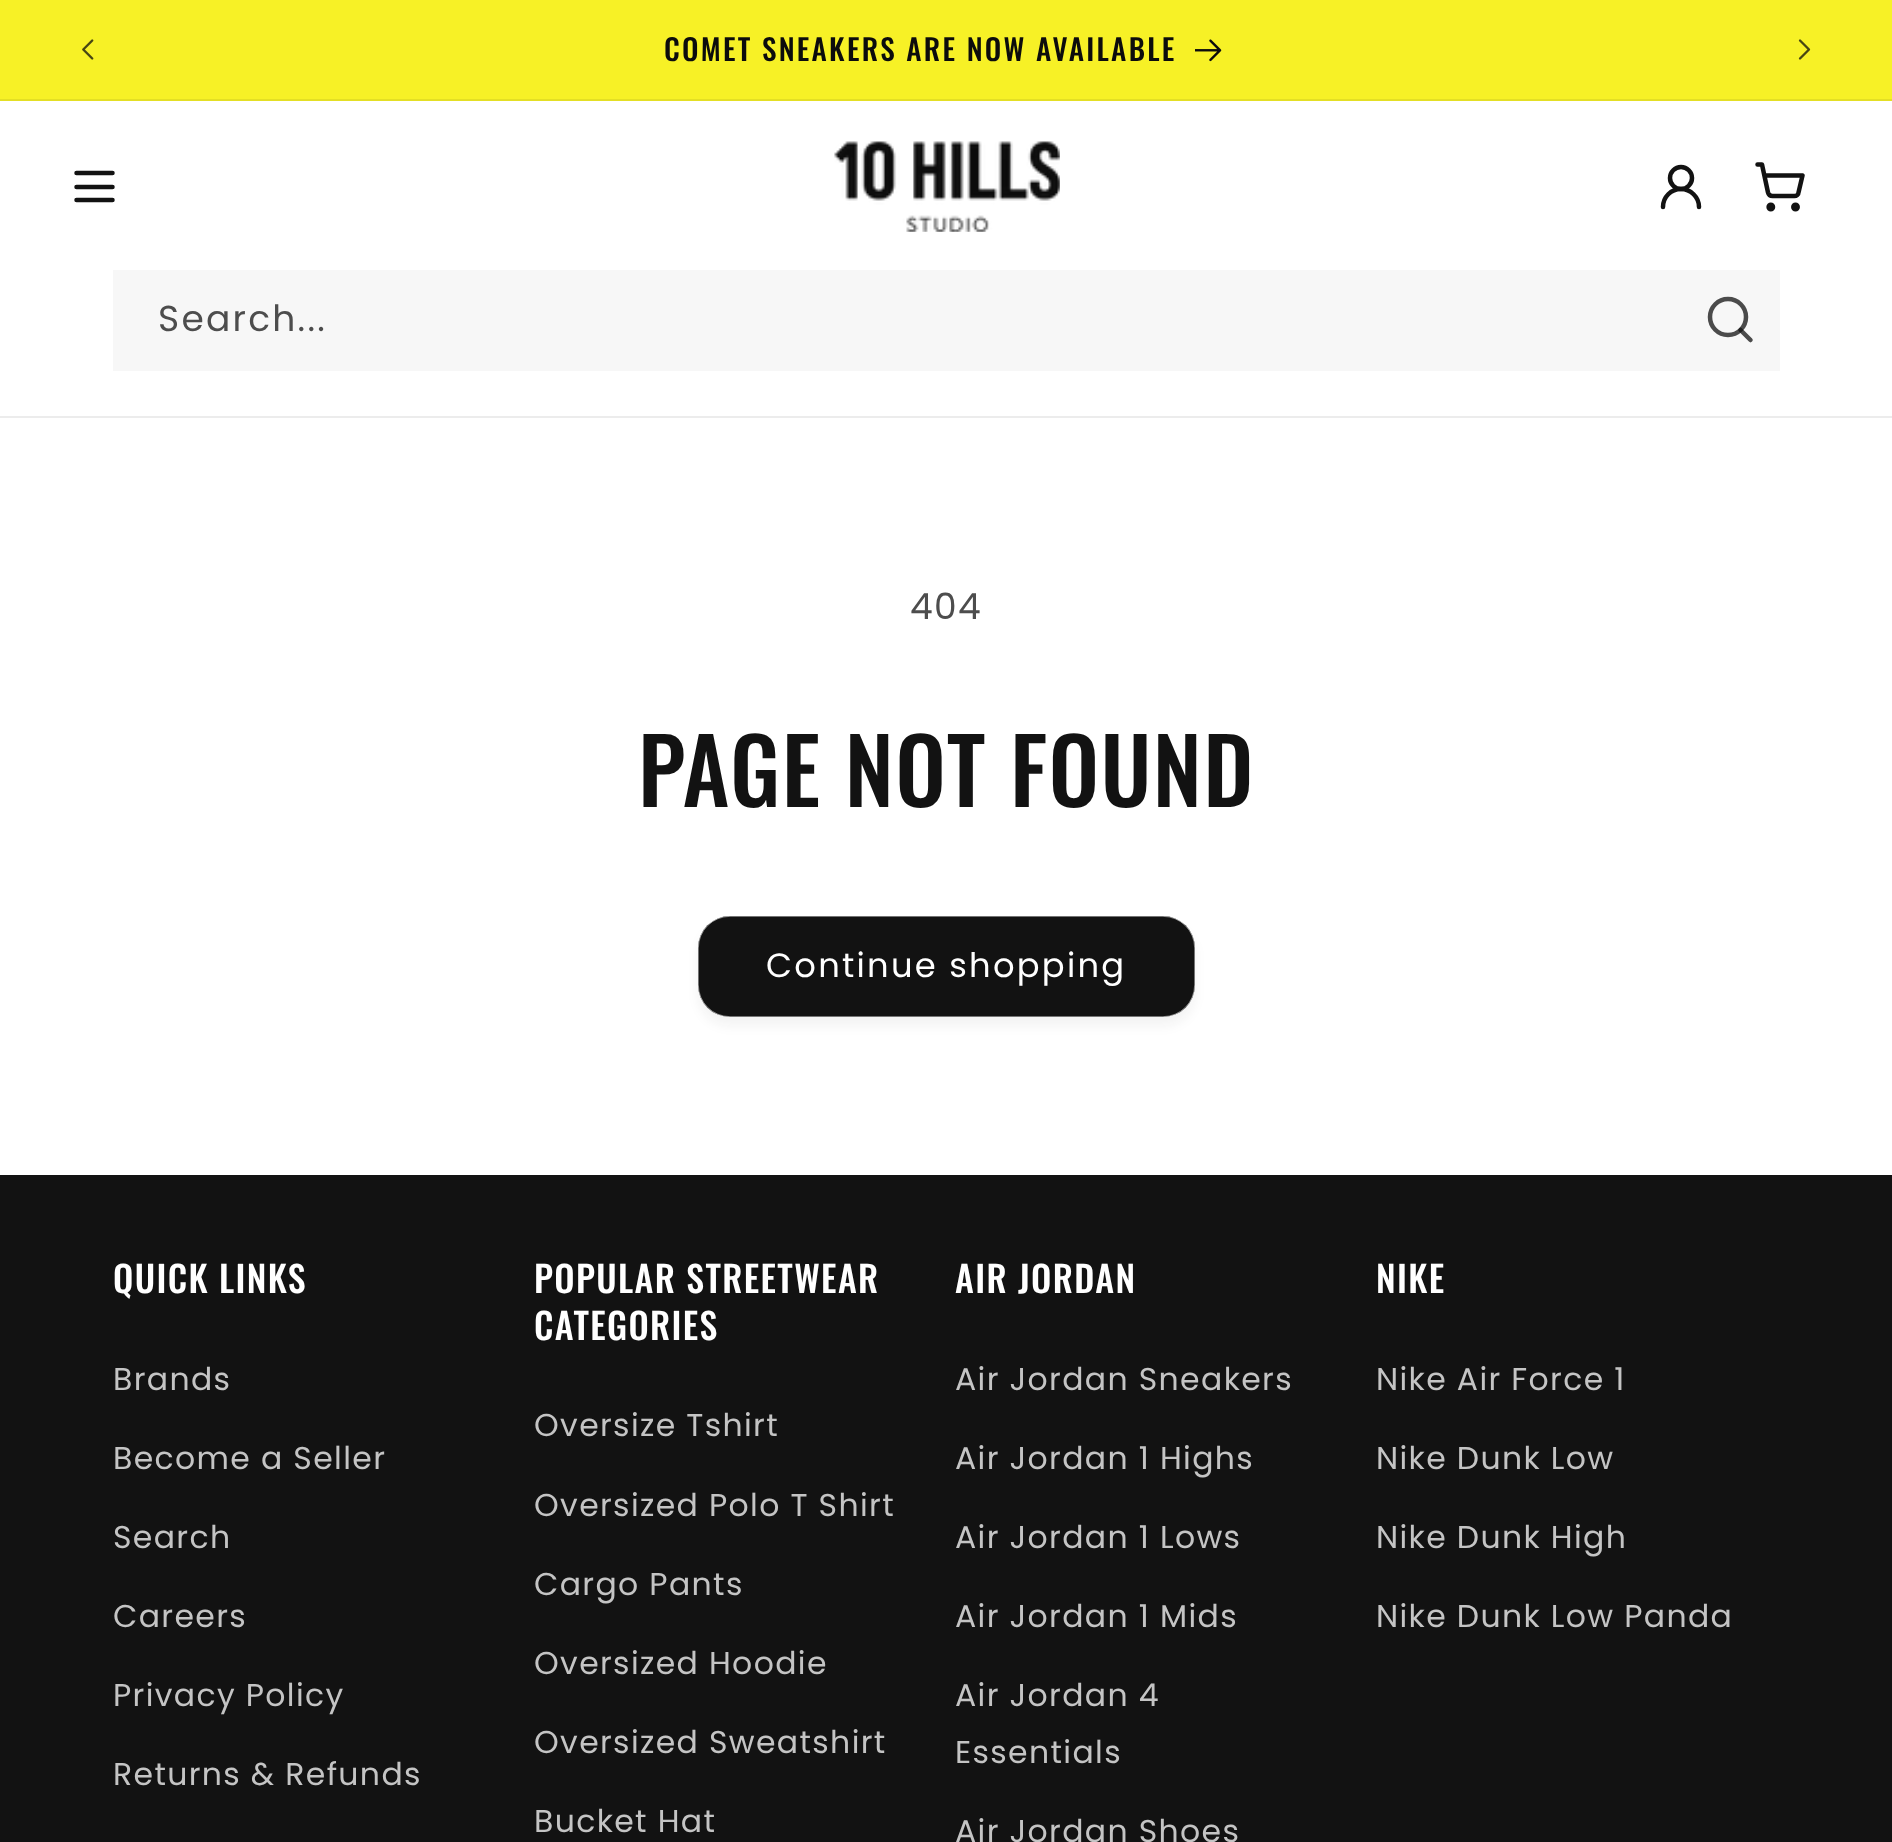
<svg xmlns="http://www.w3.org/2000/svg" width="1892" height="1842">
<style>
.a{font:500 29.25px Oswald;letter-spacing:2.25px;fill:#0c0c0c}
.b{font:36px Poppins;letter-spacing:2.25px;fill:#4d4d4d}
.c{font:36px Poppins;letter-spacing:1.35px;fill:#4d4d4d}
.d{font:500 90px Oswald;letter-spacing:1.35px;fill:#121212}
.e{font:33.75px Poppins;letter-spacing:2.25px;fill:#fff}
.f{font:500 36px Oswald;letter-spacing:1.35px;fill:#fff}
.g{font:31.5px Poppins;letter-spacing:1.35px;fill:#c4c4c4}
</style>
<rect width="100%" height="100%" fill="#fff"/>
<path fill="#f7f126" d="M0 0h1892v99H0z"/>
<path fill="#e4df24" d="M0 99h1892v2H0z"/>
<image href="1.png" x="82" y="39" width="12" height="21"/>
<image href="2.png" x="1195" y="39" width="27" height="23"/>
<image href="3.png" x="1798" y="39" width="13" height="21"/>
<path fill="#ececec" d="M0 416h1892v2H0z"/>
<path fill="none" stroke="#121212" stroke-width="4.5" stroke-linecap="round" stroke-linejoin="round" d="M76.5 187h36m-36 13h36m-36-27h36"/>
<image href="4.png" x="834" y="141" width="226" height="91"/>
<circle fill="none" stroke="#121212" stroke-width="4.5" cx="1681" cy="178" r="11"/>
<path fill="none" stroke="#121212" stroke-width="4.5" stroke-linecap="round" stroke-linejoin="round" d="M1699 207c0-10-8.5-18-18-18c-10 0-18 8-18 18"/>
<circle fill="none" stroke="#121212" stroke-width="4.5" cx="1770.8" cy="207" r="2.2"/>
<circle fill="none" stroke="#121212" stroke-width="4.5" cx="1795.5" cy="207" r="2.2"/>
<path fill="none" stroke="#121212" stroke-width="4.5" stroke-linecap="round" stroke-linejoin="round" d="M1757.5 164.5h4.5l6 28c.5 2 2 3.5 4.5 3.5h22c2 0 4-1.5 4-3.5l4-17h-38"/>
<path fill="#f7f7f7" d="M113 270h1667v101H113z"/>
<path fill="none" stroke="#4b4b4b" stroke-width="4.5" stroke-linecap="round" stroke-linejoin="round" d="M1750.5 340l-10-10"/>
<circle fill="none" stroke="#121212bf" stroke-width="4.5" cx="1728" cy="317" r="18"/>
<rect fill="#1212120d" filter="blur(5.5px)" x="698" y="925" width="497" height="101" rx="32"/>
<rect fill="#121212" x="698" y="916" width="497" height="101" rx="32"/>
<rect fill="none" stroke="#ffffffb3" stroke-width="0.7" x="698.35" y="916.35" width="496.3" height="100.3" rx="31.65"/>
<path fill="#121212" d="M0 1175h1892v667H0z"/>
<text class="a" x="664" y="61">COMET SNEAKERS ARE NOW AVAILABLE</text>
<text class="b" x="158" y="331">Search...</text>
<text class="c" x="910" y="619">404</text>
<text class="d" x="638" y="807">PAGE NOT FOUND</text>
<text class="e" x="766" y="977">Continue shopping</text>
<text class="f" x="113" y="1293">QUICK LINKS</text>
<text class="g" x="113" y="1390">Brands</text>
<text class="g" x="113" y="1469">Become a Seller</text>
<text class="g" x="113" y="1548">Search</text>
<text class="g" x="113" y="1627">Careers</text>
<text class="g" x="113" y="1706">Privacy Policy</text>
<text class="g" x="113" y="1785">Returns &amp; Refunds</text>
<text class="f" x="534" y="1293">POPULAR STREETWEAR</text>
<text class="f" x="534" y="1340">CATEGORIES</text>
<text class="g" x="534" y="1436">Oversize Tshirt</text>
<text class="g" x="534" y="1516">Oversized Polo T Shirt</text>
<text class="g" x="534" y="1595">Cargo Pants</text>
<text class="g" x="534" y="1674">Oversized Hoodie</text>
<text class="g" x="534" y="1753">Oversized Sweatshirt</text>
<text class="g" x="534" y="1832">Bucket Hat</text>
<text class="f" x="955" y="1293">AIR JORDAN</text>
<text class="g" x="955" y="1390">Air Jordan Sneakers</text>
<text class="g" x="955" y="1469">Air Jordan 1 Highs</text>
<text class="g" x="955" y="1548">Air Jordan 1 Lows</text>
<text class="g" x="955" y="1627">Air Jordan 1 Mids</text>
<text class="g" x="955" y="1706">Air Jordan 4</text>
<text class="g" x="955" y="1763">Essentials</text>
<text class="g" x="955" y="1842">Air Jordan Shoes</text>
<text class="f" x="1376" y="1293">NIKE</text>
<text class="g" x="1376" y="1390">Nike Air Force 1</text>
<text class="g" x="1376" y="1469">Nike Dunk Low</text>
<text class="g" x="1376" y="1548">Nike Dunk High</text>
<text class="g" x="1376" y="1627">Nike Dunk Low Panda</text>
</svg>
